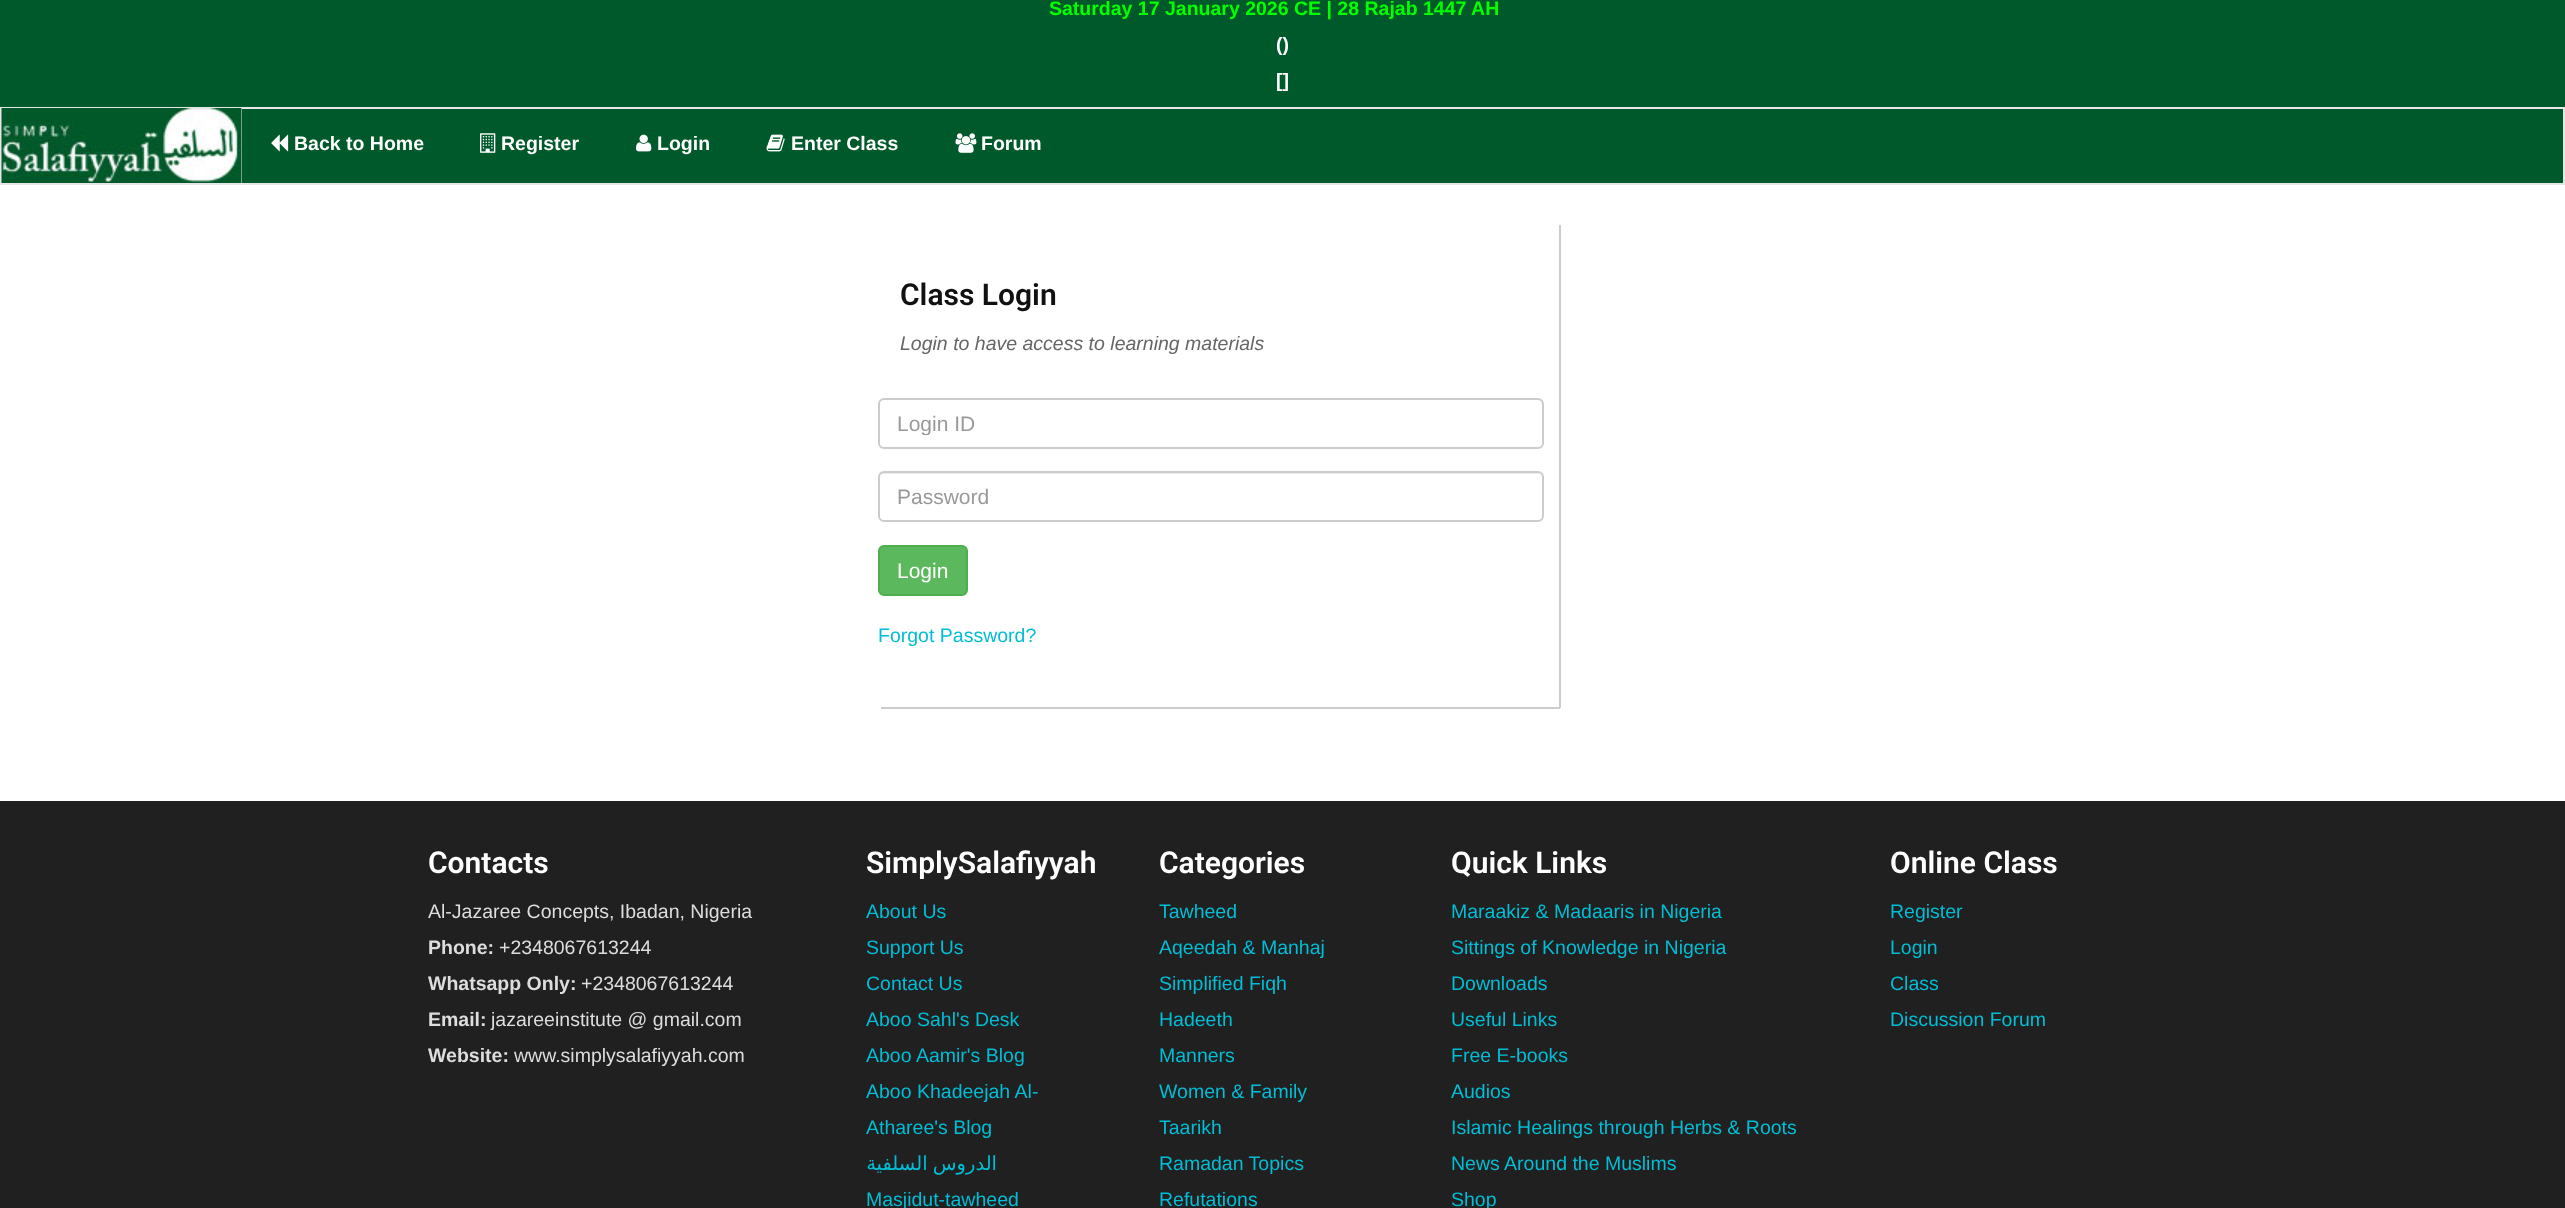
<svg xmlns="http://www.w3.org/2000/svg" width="2565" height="1208">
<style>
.a{font:bold 19.5px Liberation Sans;fill:#0f0}
.b{font:bold 19.5px Liberation Sans;fill:#fff}
.c{font:600 30px Roboto;fill:#111}
.d{font:italic 19.5px Liberation Sans;fill:#666}
.e{font:21px Liberation Sans;fill:#999}
.f{font:21px Liberation Sans;fill:#fff}
.g{font:19.5px Liberation Sans;fill:#01bdd5}
.h{font:600 30px Roboto;fill:#fff}
.i{font:19.5px Liberation Sans;fill:#ddd}
.j{font:bold 19.5px Liberation Sans;fill:#ddd}
.k{font:19.5px DejaVu Sans;direction:rtl;fill:#01bdd5}
</style>
<defs>
<clipPath id="clip1"><path d="M897 411h627v24H897z"/></clipPath>
</defs>
<rect width="100%" height="100%" fill="#fff"/>
<path fill="#00592a" d="M0 0h2565v107H0z"/>
<path fill="#00592a" d="M242 109h2321v74H242z"/>
<path fill="none" stroke="#e7e7e7" stroke-width="2" d="M1 108h2563v76H1z"/>
<path fill="#f0ede3" d="M241 108h1v75H241z"/>
<image href="1.png" x="1" y="108" width="241" height="75"/>
<image href="2.png" x="271" y="134" width="18" height="18"/>
<image href="3.png" x="480" y="133" width="16" height="20"/>
<image href="4.png" x="636" y="134" width="16" height="18"/>
<image href="5.png" x="766" y="134" width="19" height="18"/>
<image href="6.png" x="955" y="133" width="22" height="20"/>
<path fill="#ccc" d="M1559 225h2v483H1559z"/>
<path fill="#ccc" d="M881 707h679v2H881z"/>
<path fill="#ececec" d="M884 400h654c2 0 4 3 4 5v-1c0-3-2-5-5-5h-653c-3 0-5 2-5 5v1c0-2 2-5 5-5z"/>
<rect fill="none" stroke="#ccc" stroke-width="2" x="879" y="399" width="664" height="49" rx="5"/>
<path fill="#ececec" d="M884 474h654c2 0 4 2 4 4c0-3-2-5-5-5h-653c-3 0-5 2-5 5c0-2 2-4 5-4z"/>
<rect fill="none" stroke="#ccc" stroke-width="2" x="879" y="472" width="664" height="49" rx="5"/>
<rect fill="#5cb85c" stroke="#4cae4c" stroke-width="2" x="879" y="546" width="88" height="49" rx="5"/>
<path fill="#202020" d="M0 801h2565v407H0z"/>
<text class="a" x="1049" y="15">Saturday 17 January 2026 CE | 28 Rajab 1447 AH</text>
<text class="b" x="1276" y="51">()</text>
<text class="b" x="1276" y="87">[]</text>
<text class="b" x="294" y="150">Back to Home</text>
<text class="b" x="501" y="150">Register</text>
<text class="b" x="657" y="150">Login</text>
<text class="b" x="791" y="150">Enter Class</text>
<text class="b" x="981" y="150">Forum</text>
<text class="c" x="900" y="305">Class Login</text>
<text class="d" x="900" y="350">Login to have access to learning materials</text>
<g clip-path="url(#clip1)">
<text class="e" x="897" y="431">Login ID</text>
</g>
<text class="e" x="897" y="504">Password</text>
<text class="f" x="897" y="578">Login</text>
<text class="g" x="878" y="642">Forgot Password?</text>
<text class="h" x="428" y="873">Contacts</text>
<text class="i" x="428" y="918">Al-Jazaree Concepts, Ibadan, Nigeria</text>
<text class="j" x="428" y="954">Phone:</text>
<text class="i" x="499" y="954">+2348067613244</text>
<text class="j" x="428" y="990">Whatsapp Only:</text>
<text class="i" x="581" y="990">+2348067613244</text>
<text class="j" x="428" y="1026">Email:</text>
<text class="i" x="491" y="1026">jazareeinstitute @ gmail.com</text>
<text class="j" x="428" y="1062">Website:</text>
<text class="i" x="514" y="1062">www.simplysalafiyyah.com</text>
<text class="h" x="866" y="873">SimplySalafiyyah</text>
<text class="g" x="866" y="918">About Us</text>
<text class="g" x="866" y="954">Support Us</text>
<text class="g" x="866" y="990">Contact Us</text>
<text class="g" x="866" y="1026">Aboo Sahl's Desk</text>
<text class="g" x="866" y="1062">Aboo Aamir's Blog</text>
<text class="g" x="866" y="1098">Aboo Khadeejah Al-</text>
<text class="g" x="866" y="1134">Atharee's Blog</text>
<text class="k" x="997" y="1170" word-spacing="-1">الدروس السلفية</text>
<text class="g" x="866" y="1206">Masjidut-tawheed</text>
<text class="h" x="1159" y="873">Categories</text>
<text class="g" x="1159" y="918">Tawheed</text>
<text class="g" x="1159" y="954">Aqeedah &amp; Manhaj</text>
<text class="g" x="1159" y="990">Simplified Fiqh</text>
<text class="g" x="1159" y="1026">Hadeeth</text>
<text class="g" x="1159" y="1062">Manners</text>
<text class="g" x="1159" y="1098">Women &amp; Family</text>
<text class="g" x="1159" y="1134">Taarikh</text>
<text class="g" x="1159" y="1170">Ramadan Topics</text>
<text class="g" x="1159" y="1206">Refutations</text>
<text class="h" x="1451" y="873">Quick Links</text>
<text class="g" x="1451" y="918">Maraakiz &amp; Madaaris in Nigeria</text>
<text class="g" x="1451" y="954">Sittings of Knowledge in Nigeria</text>
<text class="g" x="1451" y="990">Downloads</text>
<text class="g" x="1451" y="1026">Useful Links</text>
<text class="g" x="1451" y="1062">Free E-books</text>
<text class="g" x="1451" y="1098">Audios</text>
<text class="g" x="1451" y="1134">Islamic Healings through Herbs &amp; Roots</text>
<text class="g" x="1451" y="1170">News Around the Muslims</text>
<text class="g" x="1451" y="1206">Shop</text>
<text class="h" x="1890" y="873">Online Class</text>
<text class="g" x="1890" y="918">Register</text>
<text class="g" x="1890" y="954">Login</text>
<text class="g" x="1890" y="990">Class</text>
<text class="g" x="1890" y="1026">Discussion Forum</text>
</svg>
